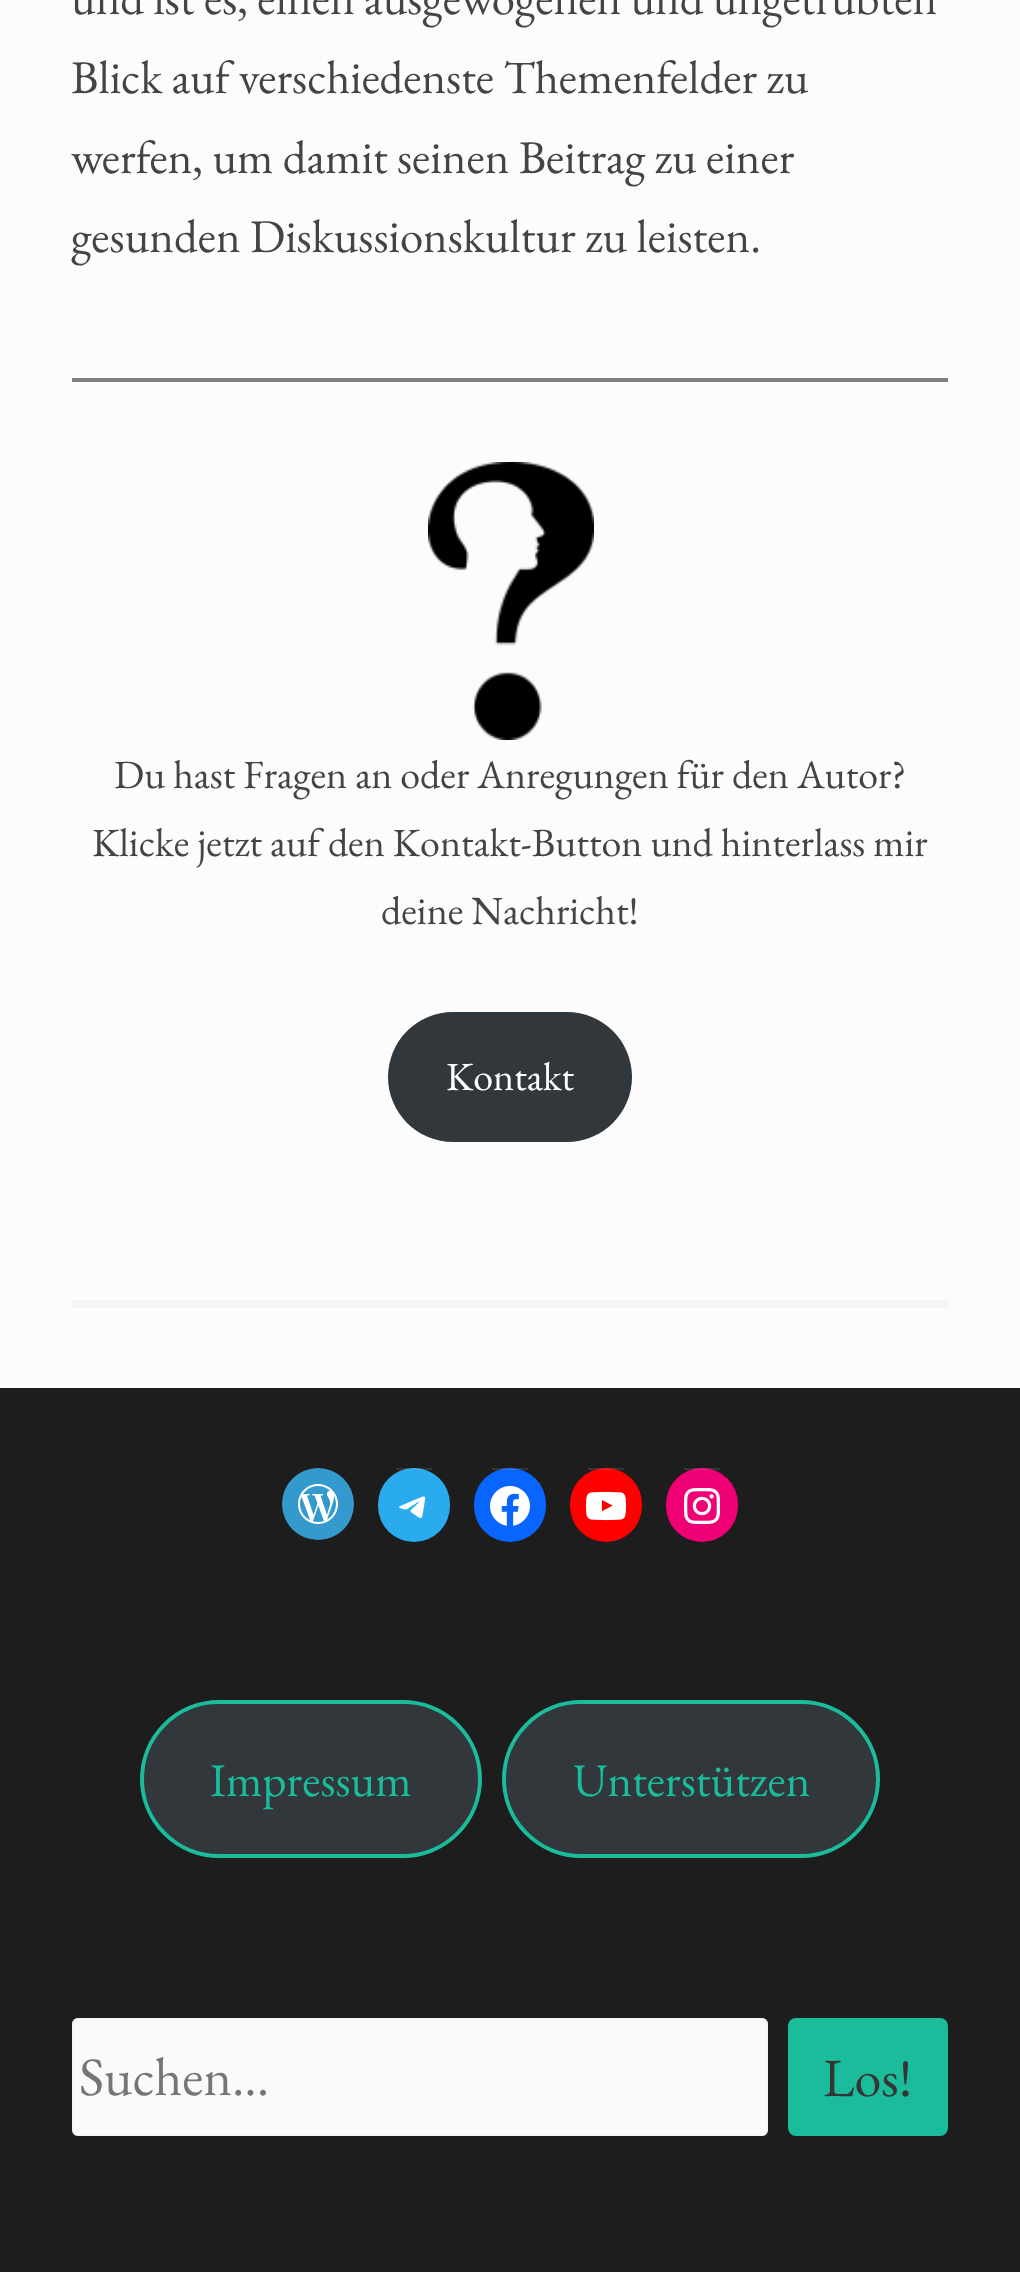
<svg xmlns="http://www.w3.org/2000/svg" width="1020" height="2272">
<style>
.a{font:46.75px EB Garamond;fill:#444}
.b{font:40px EB Garamond;fill:#444}
.c{font:40px EB Garamond;fill:#fff}
.d{font:46.75px EB Garamond;fill:#1abc9c}
.e{font:54px EB Garamond;fill:#757575}
.f{font:54px EB Garamond;fill:#353535}
</style>
<rect width="100%" height="100%" fill="#fcfcfc"/>
<path fill="#f5f5f5" d="M72 1300h876v8H72z"/>
<path fill="#808080" d="M72 378h876v4H72z"/>
<image href="1.png" x="428" y="462" width="166" height="278"/>
<rect fill="#32373c" x="388" y="1012" width="244" height="130" rx="65"/>
<path fill="#1d1d1d" d="M0 1388h1020v884H0z"/>
<circle fill="#3499cd" cx="318" cy="1504" r="36"/>
<image href="2.png" x="298" y="1484" width="40" height="40"/>
<rect fill="#2aabee" x="378" y="1468" width="72" height="74" rx="36"/>
<path fill="#ffffff1a" d="M396 1468h36v2H396z"/>
<image href="3.png" x="399" y="1496" width="27" height="22"/>
<rect fill="#0866ff" x="474" y="1468" width="72" height="74" rx="36"/>
<path fill="#ffffff1a" d="M492 1468h36v2H492z"/>
<image href="4.png" x="490" y="1486" width="40" height="40"/>
<rect fill="#f00" x="570" y="1468" width="72" height="74" rx="36"/>
<path fill="#ffffff1a" d="M588 1468h36v2H588z"/>
<image href="5.png" x="586" y="1491" width="40" height="30"/>
<rect fill="#f00075" x="666" y="1468" width="72" height="74" rx="36"/>
<path fill="#ffffff1a" d="M684 1468h36v2H684z"/>
<image href="6.png" x="684" y="1488" width="36" height="36"/>
<rect fill="#32373c" stroke="#1abc9c" stroke-width="4" x="142" y="1702" width="338" height="154" rx="77"/>
<rect fill="#32373c" stroke="#1abc9c" stroke-width="4" x="504" y="1702" width="374" height="154" rx="77"/>
<rect fill="#fafafa" x="72" y="2018" width="696" height="118" rx="6"/>
<rect fill="none" stroke="#eeeeee80" stroke-width="2" x="73" y="2019" width="694" height="116" rx="5"/>
<rect fill="#1abc9c" x="788" y="2018" width="160" height="118" rx="8"/>
<text class="a" x="71" y="14">und ist es, einen ausgewogenen und ungetrübten</text>
<text class="a" x="71" y="93">Blick auf verschiedenste Themenfelder zu</text>
<text class="a" x="71" y="173">werfen, um damit seinen Beitrag zu einer</text>
<text class="a" x="71" y="252">gesunden Diskussionskultur zu leisten.</text>
<text class="b" x="114" y="788">Du hast Fragen an oder Anregungen für den Autor?</text>
<text class="b" x="92" y="856">Klicke jetzt auf den Kontakt-Button und hinterlass mir</text>
<text class="b" x="381" y="924">deine Nachricht!</text>
<text class="c" x="446" y="1090">Kontakt</text>
<text class="d" x="210" y="1796">Impressum</text>
<text class="d" x="573" y="1796">Unterstützen</text>
<text class="e" x="79" y="2095">Suchen...</text>
<text class="f" x="823" y="2096">Los!</text>
</svg>
